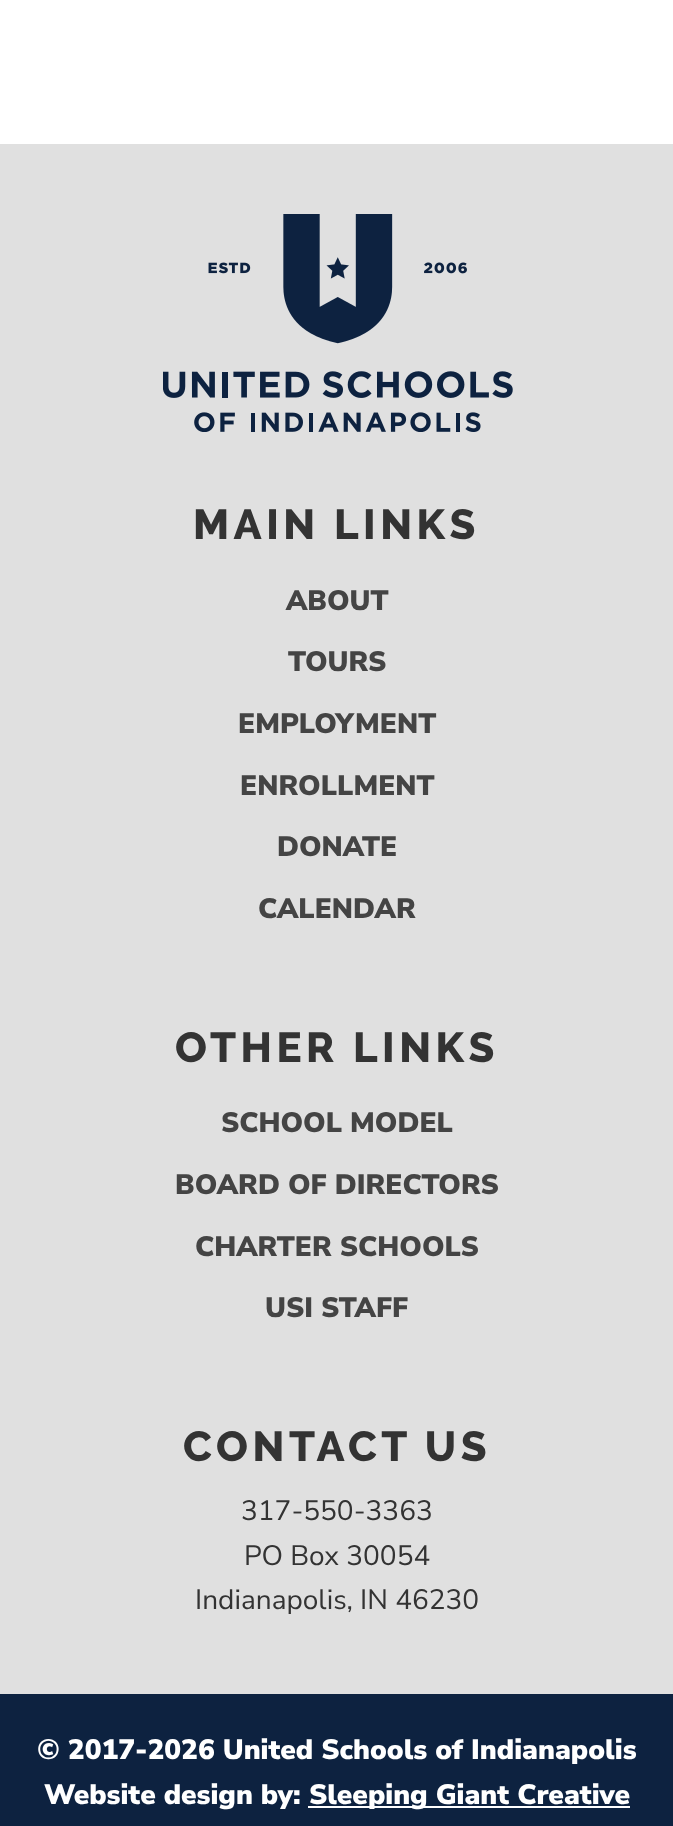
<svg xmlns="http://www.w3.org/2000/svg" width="673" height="1826">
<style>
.a{font:800 42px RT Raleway;letter-spacing:4.5px;fill:#333}
.b{font:900 28px Nunito Sans;fill:#444}
.c{font:28px Nunito Sans;fill:#333}
.d{font:900 28px Nunito Sans;fill:#fff}
</style>
<rect width="100%" height="100%" fill="#fff"/>
<path fill="#e0e0e0" d="M0 144h673v1550H0z"/>
<image href="1.png" x="163" y="214" width="350" height="218"/>
<path fill="#0d2240" d="M0 1694h673v132H0z"/>
<path fill="#fff" d="M308 1806h322v2H308z"/>
<text class="a" x="193" y="539">MAIN LINKS</text>
<text class="b" x="286" y="610">ABOUT</text>
<text class="b" x="288" y="671">TOURS</text>
<text class="b" x="238" y="733">EMPLOYMENT</text>
<text class="b" x="240" y="795">ENROLLMENT</text>
<text class="b" x="277" y="856">DONATE</text>
<text class="b" x="258" y="918">CALENDAR</text>
<text class="a" x="175" y="1062">OTHER LINKS</text>
<text class="b" x="221" y="1132">SCHOOL MODEL</text>
<text class="b" x="175" y="1194">BOARD OF DIRECTORS</text>
<text class="b" x="195" y="1256">CHARTER SCHOOLS</text>
<text class="b" x="265" y="1317">USI STAFF</text>
<text class="a" x="183" y="1461">CONTACT US</text>
<text class="c" x="241" y="1520">317-550-3363</text>
<text class="c" x="244" y="1565">PO Box 30054</text>
<text class="c" x="195" y="1609">Indianapolis, IN 46230</text>
<text class="d" x="37" y="1759">© 2017-2026 United Schools of Indianapolis</text>
<text class="d" x="44" y="1804">Website design by:</text>
<text class="d" x="309" y="1804">Sleeping Giant Creative</text>
</svg>
